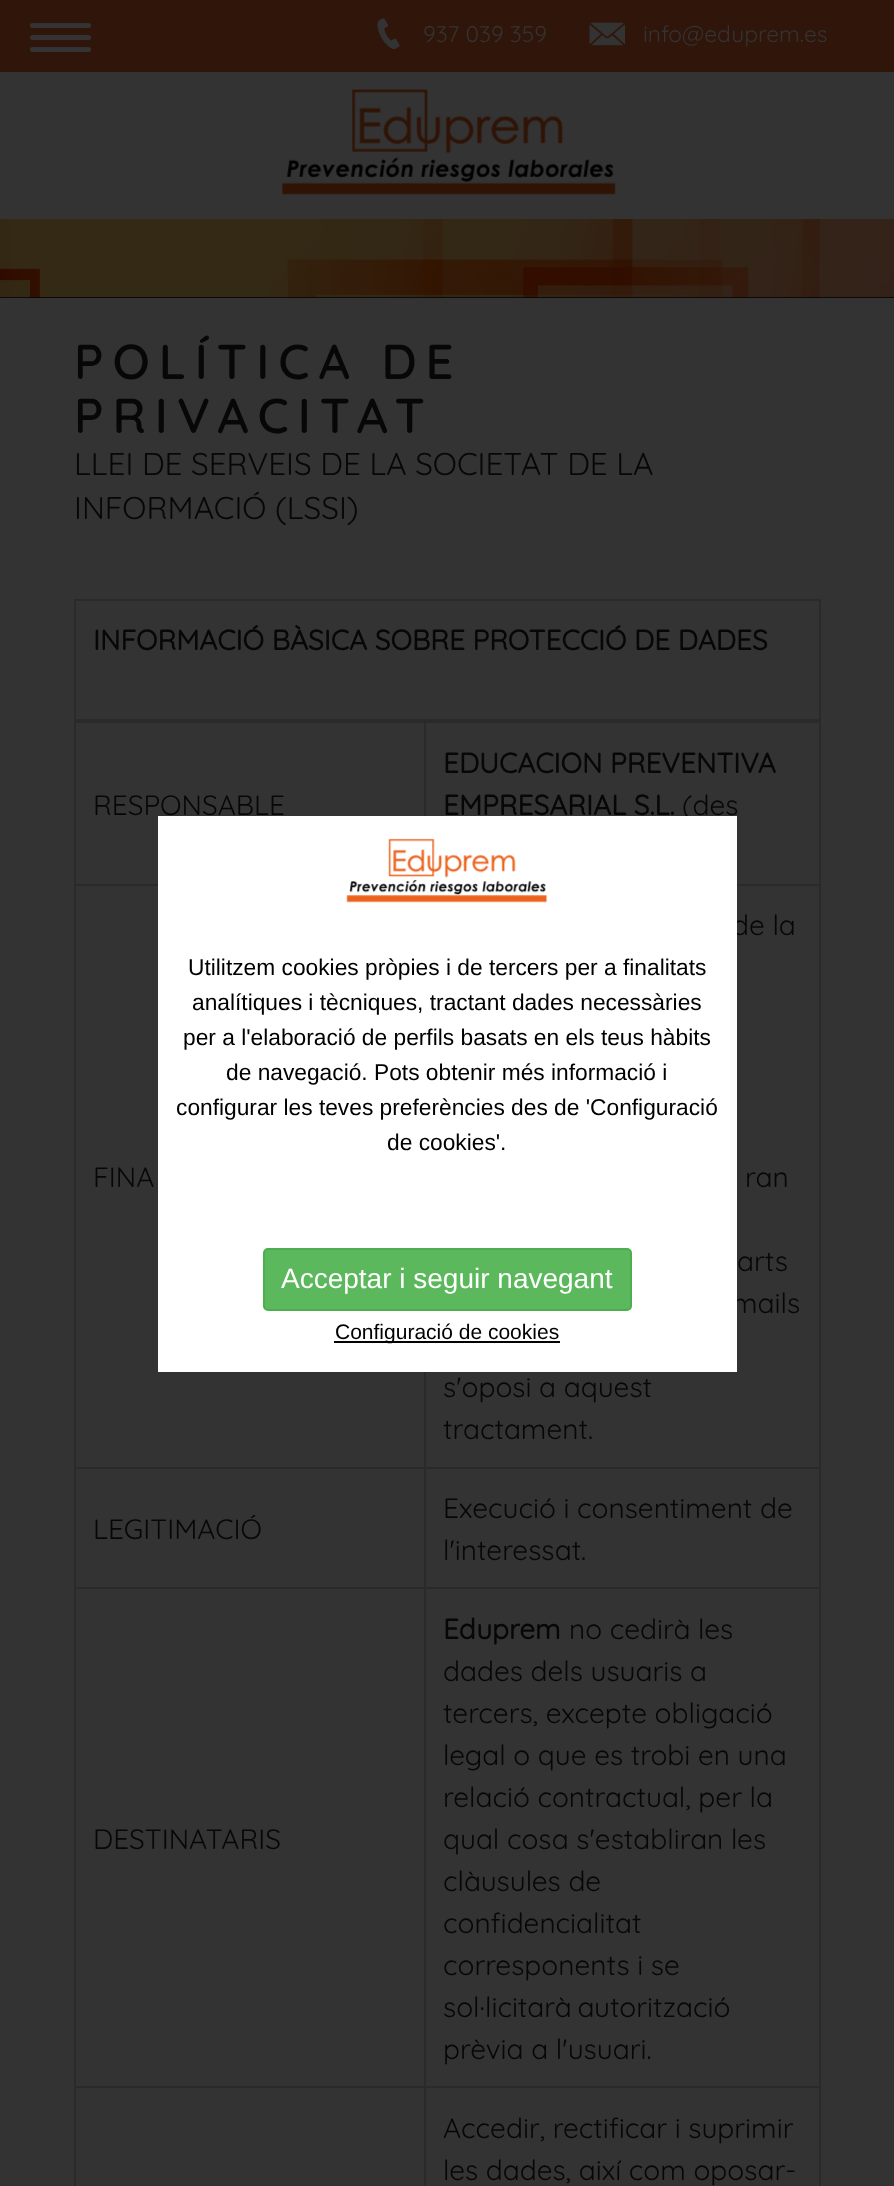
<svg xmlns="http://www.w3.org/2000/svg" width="894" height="2186">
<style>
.a{font:22.75px Quicksand;fill:#333}
.b{font:600 49px Quicksand;letter-spacing:9px;fill:#070707}
.c{font:31.5px Quicksand;fill:#070707}
.d{font:bold 28px Quicksand;fill:#070707}
.e{font:28px Quicksand;fill:#070707}
.f{font:22.75px Liberation Sans;fill:#000}
.g{font:28px Liberation Sans;fill:#fff}
.h{font:21px Liberation Sans;fill:#000}
</style>
<rect width="100%" height="100%" fill="#333"/>
<path fill="#30160a" d="M0 0h894v72H0z"/>
<rect fill="#333" x="30" y="23" width="61" height="5" rx="2.5"/>
<rect fill="#333" x="30" y="35" width="61" height="5" rx="2.5"/>
<rect fill="#333" x="30" y="47" width="61" height="5" rx="2.5"/>
<image href="1.png" x="377" y="18" width="23" height="32"/>
<image href="2.png" x="589" y="22" width="37" height="24"/>
<image href="3.png" x="282" y="89" width="334" height="106"/>
<path fill="#000" d="M0 297h894v1H0z"/>
<image href="4.png" x="0" y="219" width="894" height="79"/>
<path fill="none" stroke="#2a2a2a" stroke-width="2" d="M75 600h745v120H75z"/>
<path fill="#2a2a2a" d="M424 721h397v2H424z"/>
<path fill="#2a2a2a" d="M424 721h2v95H424z"/>
<path fill="#2a2a2a" d="M74 721h351v2H74z"/>
<path fill="#2a2a2a" d="M74 884h84v2H74z"/>
<path fill="#2a2a2a" d="M424 1467h397v2H424z"/>
<path fill="#2a2a2a" d="M424 1587h397v2H424z"/>
<path fill="#2a2a2a" d="M424 2086h397v2H424z"/>
<path fill="#2a2a2a" d="M424 2086h2v100H424z"/>
<path fill="#2a2a2a" d="M74 2086h351v2H74z"/>
<path fill="#2a2a2a" d="M424 1587h2v501H424z"/>
<path fill="#2a2a2a" d="M74 1587h351v2H74z"/>
<path fill="#2a2a2a" d="M424 1467h2v122H424z"/>
<path fill="#2a2a2a" d="M74 1467h351v2H74z"/>
<path fill="#2a2a2a" d="M74 2086h2v100H74z"/>
<path fill="#2a2a2a" d="M74 1587h2v501H74z"/>
<path fill="#2a2a2a" d="M74 1467h2v122H74z"/>
<path fill="#2a2a2a" d="M74 884h2v584H74z"/>
<path fill="#2a2a2a" d="M74 721h2v165H74z"/>
<path fill="#2a2a2a" d="M737 884h84v2H737z"/>
<path fill="#2a2a2a" d="M819 2086h2v100H819z"/>
<path fill="#2a2a2a" d="M819 1587h2v501H819z"/>
<path fill="#2a2a2a" d="M819 1467h2v122H819z"/>
<path fill="#2a2a2a" d="M819 884h2v584H819z"/>
<path fill="#2a2a2a" d="M819 721h2v165H819z"/>
<path fill="#2a2a2a" d="M424 1372h2v96H424z"/>
<text class="a" x="423" y="42">937 039 359</text>
<text class="a" x="643" y="42">info@eduprem.es</text>
<text class="b" x="74" y="379">POLÍTICA DE</text>
<text class="b" x="74" y="433">PRIVACITAT</text>
<text class="c" x="74" y="475">LLEI DE SERVEIS DE LA SOCIETAT DE LA</text>
<text class="c" x="74" y="519">INFORMACIÓ (LSSI)</text>
<text class="d" x="93" y="650">INFORMACIÓ BÀSICA SOBRE PROTECCIÓ DE DADES</text>
<text class="e" x="93" y="815">RESPONSABLE</text>
<text class="d" x="443" y="773">EDUCACION PREVENTIVA</text>
<text class="d" x="443" y="815">EMPRESARIAL S.L.</text>
<text class="e" x="682" y="815">(des</text>
<text class="e" x="93" y="1187">FINA</text>
<text class="e" x="732" y="935">de la</text>
<text class="e" x="745" y="1187">ran</text>
<text class="e" x="737" y="1271">arts</text>
<text class="e" x="732" y="1313">mails</text>
<text class="e" x="443" y="1397">s'oposi a aquest</text>
<text class="e" x="443" y="1439">tractament.</text>
<text class="e" x="93" y="1539">LEGITIMACIÓ</text>
<text class="e" x="443" y="1518">Execució i consentiment de</text>
<text class="e" x="443" y="1560">l'interessat.</text>
<text class="e" x="93" y="1849">DESTINATARIS</text>
<text class="d" x="443" y="1639">Eduprem</text>
<text class="e" x="569" y="1639">no cedirà les</text>
<text class="e" x="443" y="1681">dades dels usuaris a</text>
<text class="e" x="443" y="1723">tercers, excepte obligació</text>
<text class="e" x="443" y="1765">legal o que es trobi en una</text>
<text class="e" x="443" y="1807">relació contractual, per la</text>
<text class="e" x="443" y="1849">qual cosa s'establiran les</text>
<text class="e" x="443" y="1891">clàusules de</text>
<text class="e" x="443" y="1933">confidencialitat</text>
<text class="e" x="443" y="1975">corresponents i se</text>
<text class="e" x="443" y="2017" word-spacing="-2">sol·licitarà autorització</text>
<text class="e" x="443" y="2059">prèvia a l'usuari.</text>
<text class="e" x="443" y="2138">Accedir, rectificar i suprimir</text>
<text class="e" x="443" y="2180">les dades, així com oposar-</text>
<path fill="#fff" d="M158 816h579v556H158z"/>
<image href="5.png" x="346" y="838" width="202" height="65"/>
<text class="f" x="188" y="975">Utilitzem cookies pròpies i de tercers per a finalitats</text>
<text class="f" x="192" y="1010">analítiques i tècniques, tractant dades necessàries</text>
<text class="f" x="183" y="1045">per a l'elaboració de perfils basats en els teus hàbits</text>
<text class="f" x="226" y="1080">de navegació. Pots obtenir més informació i</text>
<text class="f" x="176" y="1115">configurar les teves preferències des de 'Configuració</text>
<text class="f" x="387" y="1150">de cookies'.</text>
<rect fill="#5cb85c" stroke="#4cae4c" stroke-width="2" x="264" y="1249" width="367" height="61" rx="4"/>
<text class="g" x="281" y="1288">Acceptar i seguir navegant</text>
<path fill="#000" d="M334 1341h226v2H334z"/>
<text class="h" x="335" y="1339">Configuració de cookies</text>
</svg>
